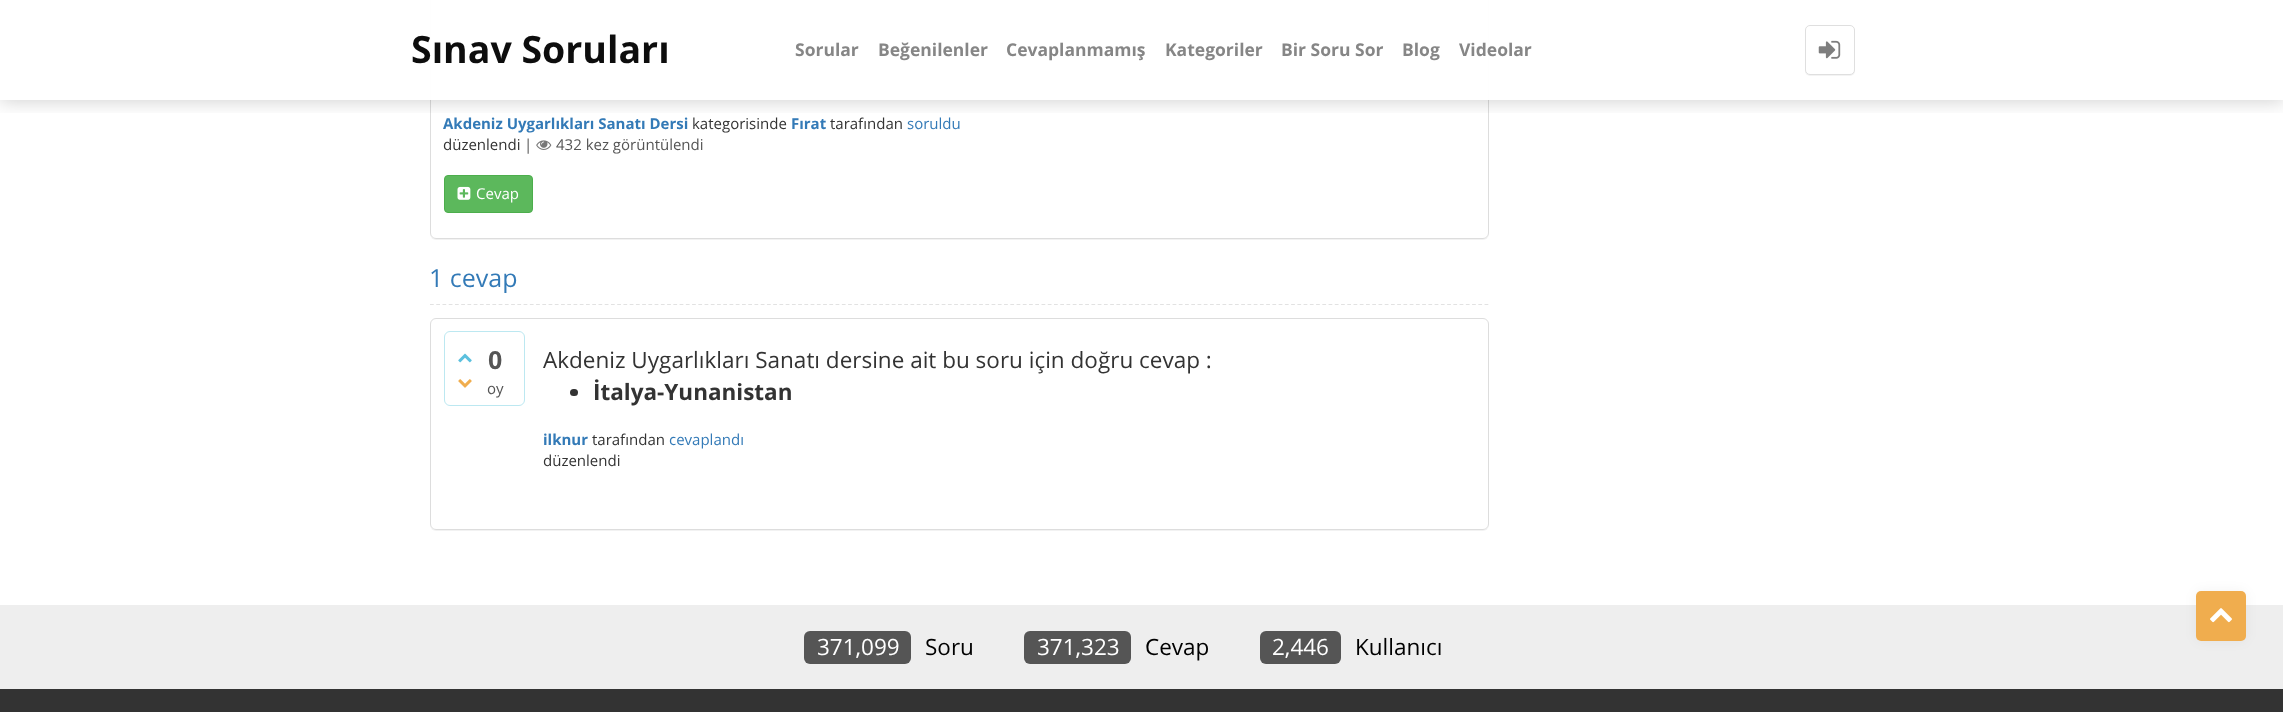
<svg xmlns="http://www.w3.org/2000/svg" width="2283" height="712">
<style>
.a{font:bold 37.5px Open Sans;fill:#0d0d0d}
.b{font:bold 17.5px Open Sans;fill:#868686}
.c{font:bold 15px Open Sans;fill:#337ab7}
.d{font:15px Open Sans;fill:#333}
.e{font:15px Open Sans;fill:#337ab7}
.f{font:15px Open Sans;fill:#555}
.g{font:15px Open Sans;fill:#fff}
.h{font:25px Open Sans;fill:#337ab7}
.i{font:bold 25px Open Sans;fill:#555}
.j{font:22.5px Open Sans;fill:#333}
.k{font:bold 22.5px Open Sans;fill:#333}
.l{font:22.5px Open Sans;fill:#fff}
.m{font:22.5px Open Sans;fill:#000}
</style>
<defs>
<clipPath id="clip1"><path d="M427 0h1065v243h-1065zm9-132h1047c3.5 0 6 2.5 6 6v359c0 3.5-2.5 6-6 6h-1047c-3.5 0-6-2.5-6-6v-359c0-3.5 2.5-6 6-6z" clip-rule="evenodd"/></clipPath>
<clipPath id="clip2"><path d="M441 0h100v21h-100zm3-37h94v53h-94z" clip-rule="evenodd"/></clipPath>
<clipPath id="clip3"><path d="M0 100h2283v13H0z"/></clipPath>
<clipPath id="clip4"><path d="M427 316h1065v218h-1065zm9 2h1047c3.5 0 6 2.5 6 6v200c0 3.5-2.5 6-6 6h-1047c-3.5 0-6-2.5-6-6v-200c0-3.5 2.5-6 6-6z" clip-rule="evenodd"/></clipPath>
</defs>
<rect width="100%" height="100%" fill="#fff"/>
<g clip-path="url(#clip1)">
<rect fill="#0000000d" filter="blur(0.5px)" x="430" y="-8" width="1059" height="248" rx="6"/>
</g>
<rect fill="none" stroke="#ddd" x="430.5" y="-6.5" width="1058" height="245" rx="5.5"/>
<g clip-path="url(#clip2)">
<path fill="#0000000d" filter="blur(0.5px)" d="M444 -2h94v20H444z"/>
</g>
<path fill="#eee" d="M444 15h94v1H444z"/>
<g clip-path="url(#clip3)">
<path fill="#00000030" filter="blur(9.5px)" d="M0 1h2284v100H0z"/>
</g>
<path fill="#fffffff2" d="M430 0h1059v100H430z"/>
<rect fill="#0d0d0d0d" filter="blur(0.5px)" x="1805" y="26" width="50" height="50" rx="5"/>
<rect fill="#fff" stroke="#dfdfdf" x="1805.5" y="25.5" width="49" height="49" rx="4.5"/>
<image href="1.png" x="1818" y="40" width="23" height="19"/>
<image href="2.png" x="536" y="140" width="16" height="10"/>
<rect fill="#5cb85c" stroke="#4cae4c" x="444.5" y="175.5" width="88" height="37" rx="3.5"/>
<image href="3.png" x="457" y="186" width="14" height="14"/>
<path fill="none" stroke="#e2e2e2" stroke-width="1.2" stroke-dasharray="3.75 2.49" d="M430 304.5h1059"/>
<g clip-path="url(#clip4)">
<rect fill="#0000000d" filter="blur(0.5px)" x="430" y="319" width="1059" height="212" rx="6"/>
</g>
<rect fill="none" stroke="#ddd" x="430.5" y="318.5" width="1058" height="211" rx="5.5"/>
<rect fill="none" stroke="#bce8f1" x="444.5" y="331.5" width="80" height="74" rx="5.5"/>
<image href="4.png" x="458" y="353" width="14" height="10"/>
<image href="5.png" x="458" y="379" width="14" height="9"/>
<rect fill="#333" x="570" y="389" width="8" height="7" rx="3.5"/>
<path fill="#333" d="M0 689h2283v23H0z"/>
<path fill="#eee" d="M0 605h2283v84H0z"/>
<rect fill="#0000000d" filter="blur(6px)" x="2196" y="591" width="50" height="50" rx="5"/>
<rect fill="#f0ad4e" x="2196" y="591" width="50" height="50" rx="5"/>
<image href="6.png" x="2210" y="608" width="22" height="15"/>
<rect fill="#555" x="804" y="631" width="107" height="33" rx="6"/>
<rect fill="#555" x="1024" y="631" width="107" height="33" rx="6"/>
<rect fill="#555" x="1260" y="631" width="81" height="33" rx="6"/>
<text class="a" x="411" y="63">Sınav Soruları</text>
<text class="b" x="795" y="56">Sorular</text>
<text class="b" x="878" y="56">Beğenilenler</text>
<text class="b" x="1006" y="56">Cevaplanmamış</text>
<text class="b" x="1165" y="56">Kategoriler</text>
<text class="b" x="1281" y="56">Bir Soru Sor</text>
<text class="b" x="1402" y="56">Blog</text>
<text class="b" x="1459" y="56">Videolar</text>
<text class="c" x="443" y="129">Akdeniz Uygarlıkları Sanatı Dersi</text>
<text class="d" x="692" y="129">kategorisinde</text>
<text class="c" x="791" y="129">Fırat</text>
<text class="d" x="830" y="129">tarafından</text>
<text class="e" x="907" y="129">soruldu</text>
<text class="d" x="443" y="150">düzenlendi</text>
<text class="f" x="524" y="150">|</text>
<text class="f" x="556" y="150">432 kez görüntülendi</text>
<text class="g" x="476" y="199">Cevap</text>
<text class="h" x="429" y="287">1 cevap</text>
<text class="i" x="488" y="369">0</text>
<text class="f" x="487" y="394">oy</text>
<text class="j" x="543" y="368">Akdeniz Uygarlıkları Sanatı dersine ait bu soru için doğru cevap :</text>
<text class="k" x="593" y="400">İtalya-Yunanistan</text>
<text class="c" x="543" y="445">ilknur</text>
<text class="d" x="592" y="445">tarafından</text>
<text class="e" x="669" y="445">cevaplandı</text>
<text class="d" x="543" y="466">düzenlendi</text>
<text class="l" x="817" y="655">371,099</text>
<text class="m" x="925" y="655">Soru</text>
<text class="l" x="1037" y="655">371,323</text>
<text class="m" x="1145" y="655">Cevap</text>
<text class="l" x="1272" y="655">2,446</text>
<text class="m" x="1355" y="655">Kullanıcı</text>
</svg>
